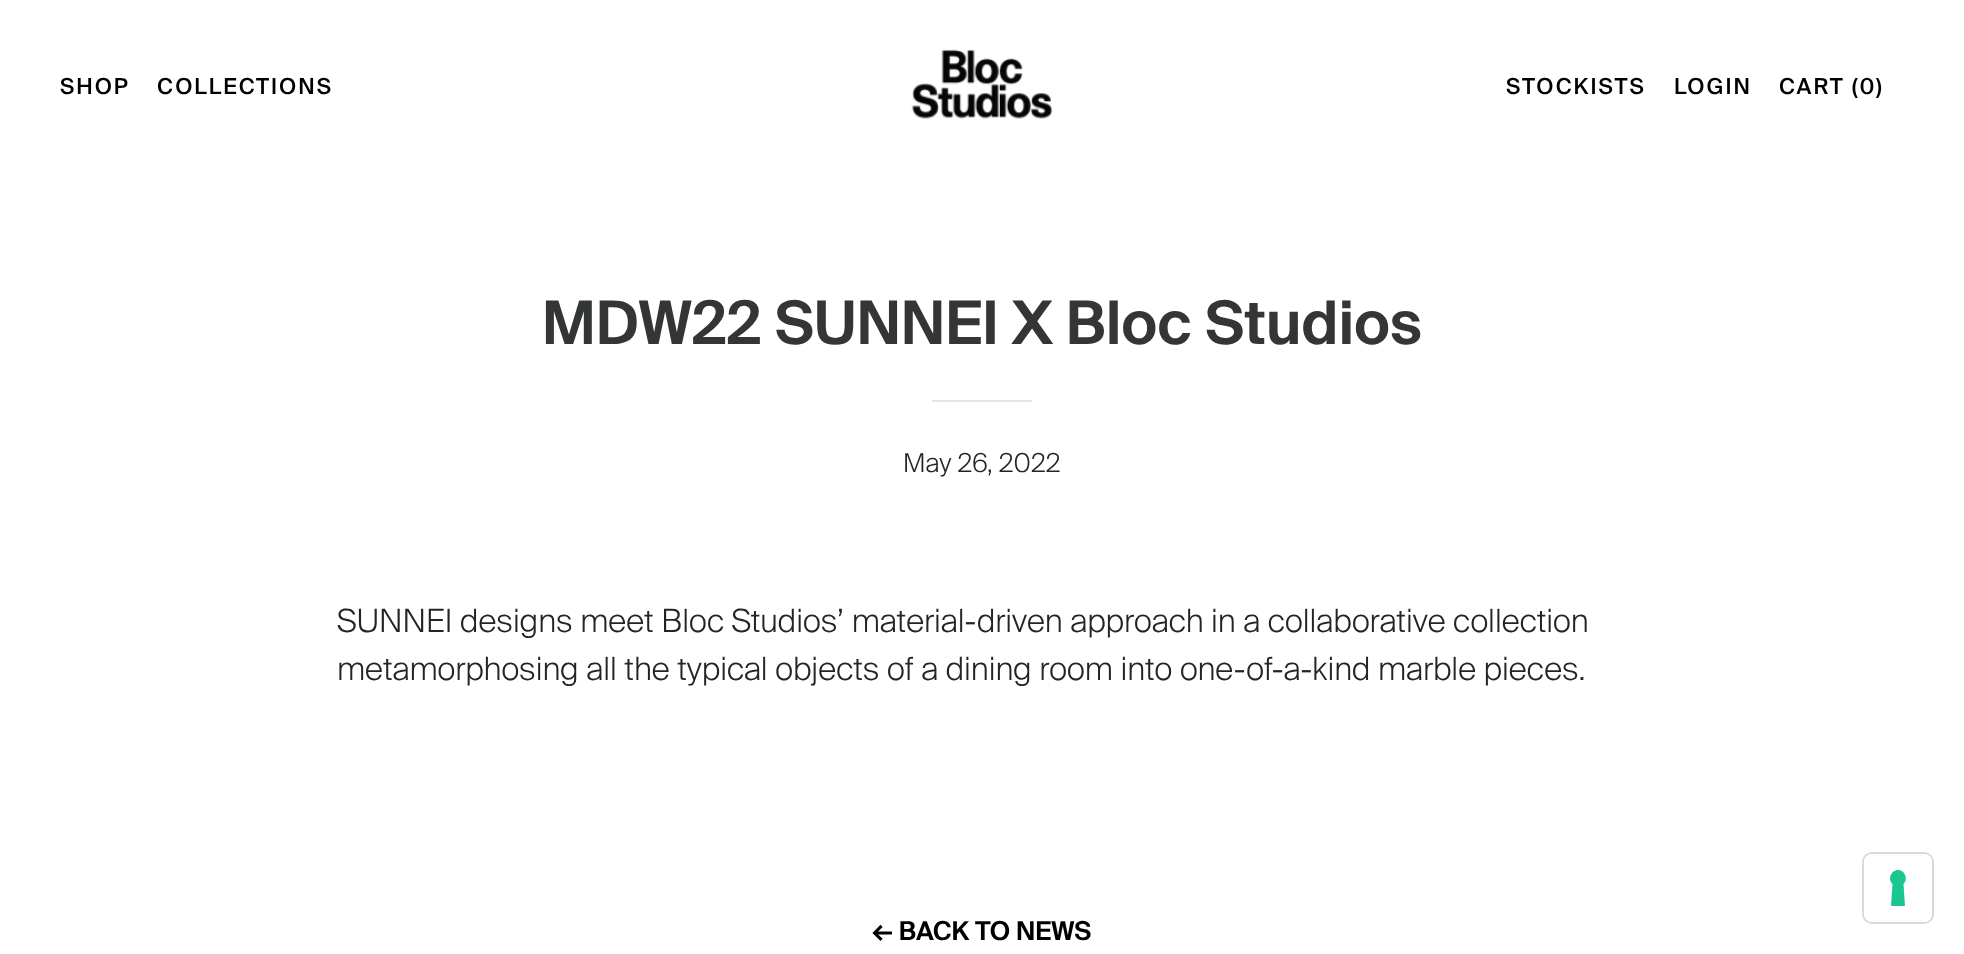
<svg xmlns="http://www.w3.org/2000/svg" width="1964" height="954">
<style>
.a{font:500 22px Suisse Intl;letter-spacing:2px;fill:#000}
.b{font:600 60px Suisse Intl;fill:#343535}
.c{font:300 26px Suisse Intl;fill:#212529}
.d{font:300 32px Suisse Intl;fill:#212529}
.e{font:600 26px Suisse Intl;fill:#000}
</style>
<rect width="100%" height="100%" fill="#fff"/>
<image href="1.png" x="911" y="49" width="142" height="70"/>
<path fill="#e6e6e6" d="M932 400h100v2H932z"/>
<rect fill="none" stroke="#d9d9d9" stroke-width="2" x="1863" y="853" width="70" height="70" rx="9"/>
<rect fill="#fff" x="1864" y="854" width="68" height="68" rx="8"/>
<path fill="#1cc691" fill-rule="evenodd" d="M1898 870c7 0 10.5 9.5 5.5 14l1.5 22h-14l1.5-22c-5-4.5-1.5-14 5.5-14z"/>
<text class="a" x="60" y="94">SHOP</text>
<text class="a" x="157" y="94">COLLECTIONS</text>
<text class="a" x="1506" y="94">STOCKISTS</text>
<text class="a" x="1674" y="94">LOGIN</text>
<text class="a" x="1779" y="94">CART (0)</text>
<text class="b" x="542" y="344">MDW22 SUNNEI X Bloc Studios</text>
<text class="c" x="903" y="472">May 26, 2022</text>
<text class="d" x="337" y="632">SUNNEI designs meet Bloc Studios’ material-driven approach in a collaborative collection</text>
<text class="d" x="337" y="680">metamorphosing all the typical objects of a dining room into one-of-a-kind marble pieces.</text>
<text class="e" x="872" y="940">← BACK TO NEWS</text>
</svg>
